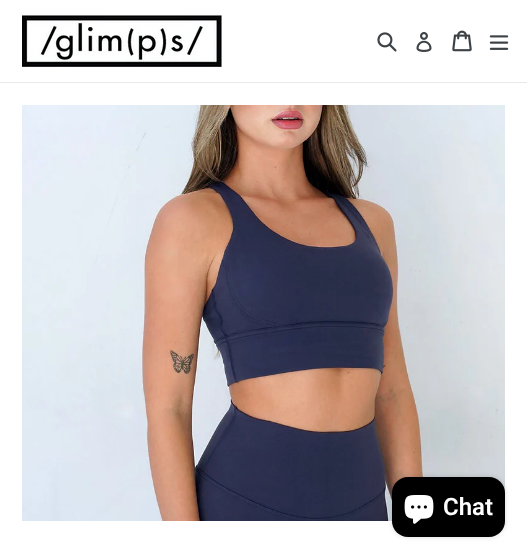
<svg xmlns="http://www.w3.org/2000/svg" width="527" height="558">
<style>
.a{font:600 24px Roboto;fill:#fff}
</style>
<rect width="100%" height="100%" fill="#fff"/>
<path fill="#e8e9eb" d="M0 82h527v1H0z"/>
<image href="1.png" x="22" y="15" width="200" height="52"/>
<image href="2.png" x="377" y="32" width="20" height="20"/>
<image href="3.png" x="416" y="32" width="16" height="20"/>
<image href="4.png" x="452" y="30" width="20" height="22"/>
<image href="5.png" x="489" y="35" width="20" height="15"/>
<image href="6.png" x="22" y="105" width="483" height="416"/>
<rect fill="#00000026" filter="blur(2.5px)" x="392" y="477" width="113" height="60" rx="16"/>
<rect fill="#000" x="392" y="477" width="113" height="60" rx="16"/>
<image href="7.png" x="404" y="495" width="30" height="29"/>
<text class="a" x="443" y="515">Chat</text>
</svg>
